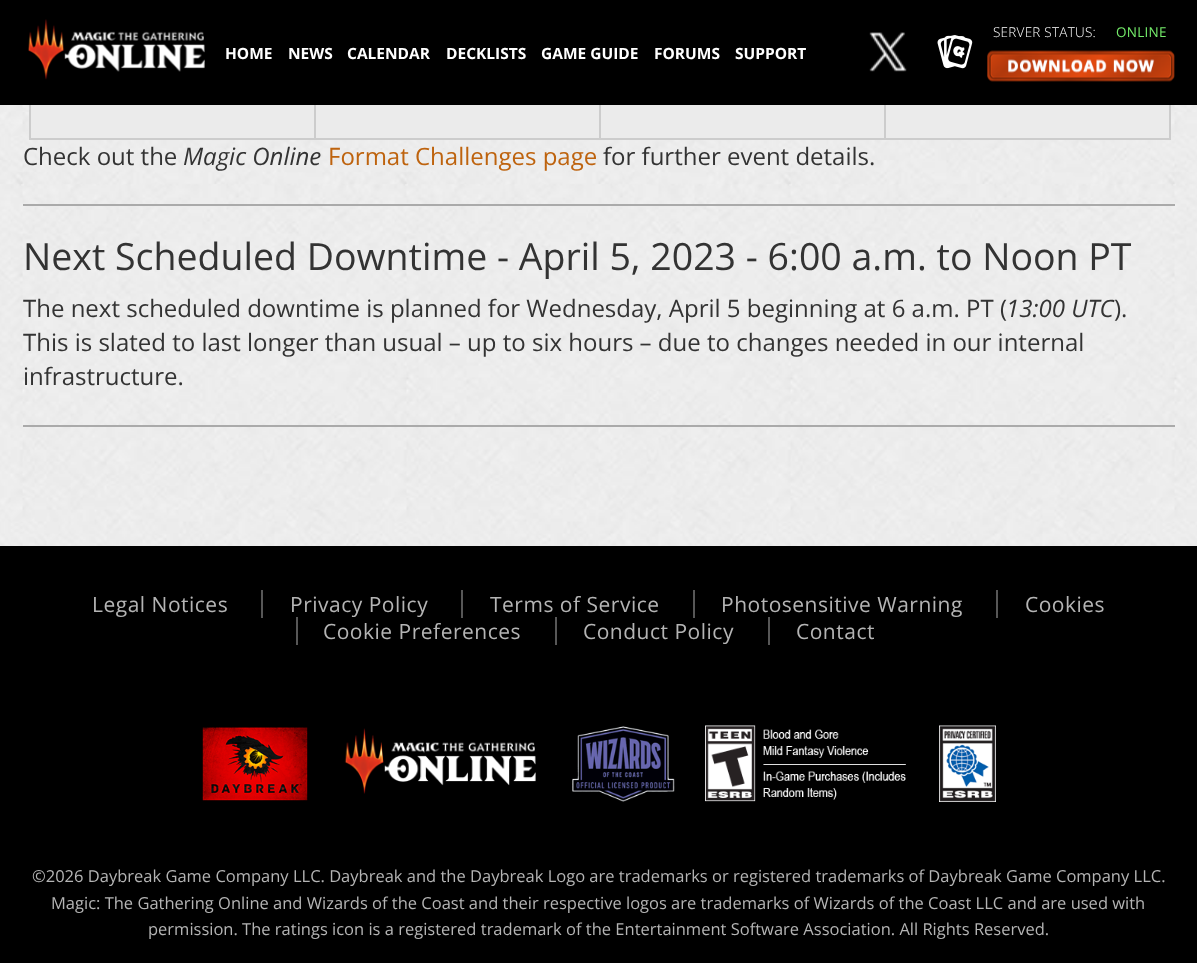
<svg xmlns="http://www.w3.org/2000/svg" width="1197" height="963">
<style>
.a{font:bold 15.5px Open Sans;fill:#fff}
.b{font:300 13.5px Open Sans;letter-spacing:0.25px;fill:#fff}
.c{font:13.5px Open Sans;letter-spacing:0.25px;fill:#74eb6a}
.d{font:24px Open Sans;fill:#333}
.e{font:italic 24px Open Sans;fill:#333}
.f{font:24px Open Sans;fill:#be630e}
.g{font:37.5px Open Sans;fill:#333}
.h{font:21px Open Sans;letter-spacing:0.5px;fill:#b4b4b4}
.i{font:16.5px Open Sans;fill:#b4b4b4}
</style>
<rect width="100%" height="100%" fill="#fff"/>
<image href="1.png" x="0" y="105" width="1197" height="441"/>
<path fill="#000" d="M0 0h1197v105H0z"/>
<image href="2.png" x="28" y="19" width="177" height="61"/>
<image href="3.png" x="869" y="32" width="38" height="40"/>
<image href="4.png" x="937" y="35" width="36" height="34"/>
<image href="5.png" x="987" y="50" width="188" height="32"/>
<path fill="#ccc" d="M1169 105h2v35H1169z"/>
<path fill="#ccc" d="M29 138h1141v2H29z"/>
<path fill="#ccc" d="M29 105h2v35H29z"/>
<path fill="#ebebeb" d="M31 105h1138v33H31z"/>
<path fill="#ccc" d="M314 105h2v35H314z"/>
<path fill="#ccc" d="M599 105h2v35H599z"/>
<path fill="#ccc" d="M884 105h2v35H884z"/>
<path fill="#aaa" d="M23 204h1152v2H23z"/>
<path fill="#aaa" d="M23 425h1152v2H23z"/>
<path fill="#000" d="M0 546h1197v417H0z"/>
<path fill="#575757" d="M261 590h2v28H261z"/>
<path fill="#575757" d="M461 590h2v28H461z"/>
<path fill="#575757" d="M693 590h2v28H693z"/>
<path fill="#575757" d="M996 590h2v28H996z"/>
<path fill="#575757" d="M555 617h2v28H555z"/>
<image href="6.png" x="202" y="727" width="106" height="74"/>
<image href="7.png" x="344" y="728" width="192" height="66"/>
<image href="8.png" x="572" y="726" width="103" height="76"/>
<image href="9.png" x="705" y="725" width="201" height="77"/>
<image href="10.png" x="939" y="725" width="57" height="77"/>
<text class="a" x="225" y="59">HOME</text>
<text class="a" x="288" y="59">NEWS</text>
<text class="a" x="347" y="59">CALENDAR</text>
<text class="a" x="446" y="59">DECKLISTS</text>
<text class="a" x="541" y="59">GAME GUIDE</text>
<text class="a" x="654" y="59">FORUMS</text>
<text class="a" x="735" y="59">SUPPORT</text>
<text class="b" x="993" y="37">SERVER STATUS:</text>
<text class="c" x="1116" y="37">ONLINE</text>
<text class="d" x="23" y="165">Check out the</text>
<text class="e" x="183" y="165">Magic Online</text>
<text class="f" x="328" y="165">Format Challenges page</text>
<text class="d" x="603" y="165">for further event details.</text>
<text class="g" x="23" y="270">Next Scheduled Downtime - April 5, 2023 - 6:00 a.m. to Noon PT</text>
<text class="d" x="23" y="317">The next scheduled downtime is planned for Wednesday, April 5 beginning at 6 a.m. PT (</text>
<text class="e" x="1006" y="317">13:00 UTC</text>
<text class="d" x="1114" y="317">).</text>
<text class="d" x="23" y="351">This is slated to last longer than usual – up to six hours – due to changes needed in our internal</text>
<text class="d" x="23" y="385">infrastructure.</text>
<text class="h" x="92" y="612">Legal Notices</text>
<text class="h" x="290" y="612">Privacy Policy</text>
<text class="h" x="490" y="612">Terms of Service</text>
<text class="h" x="721" y="612">Photosensitive Warning</text>
<text class="h" x="1025" y="612">Cookies</text>
<text class="h" x="323" y="639">Cookie Preferences</text>
<path fill="#575757" d="M296 617h2v28H296z"/>
<text class="h" x="583" y="639">Conduct Policy</text>
<text class="h" x="796" y="639">Contact</text>
<path fill="#575757" d="M768 617h2v28H768z"/>
<text class="i" x="32" y="882">©2026 Daybreak Game Company LLC. Daybreak and the Daybreak Logo are trademarks or registered trademarks of Daybreak Game Company LLC.</text>
<text class="i" x="51" y="909">Magic: The Gathering Online and Wizards of the Coast and their respective logos are trademarks of Wizards of the Coast LLC and are used with</text>
<text class="i" x="148" y="935">permission. The ratings icon is a registered trademark of the Entertainment Software Association. All Rights Reserved.</text>
</svg>
